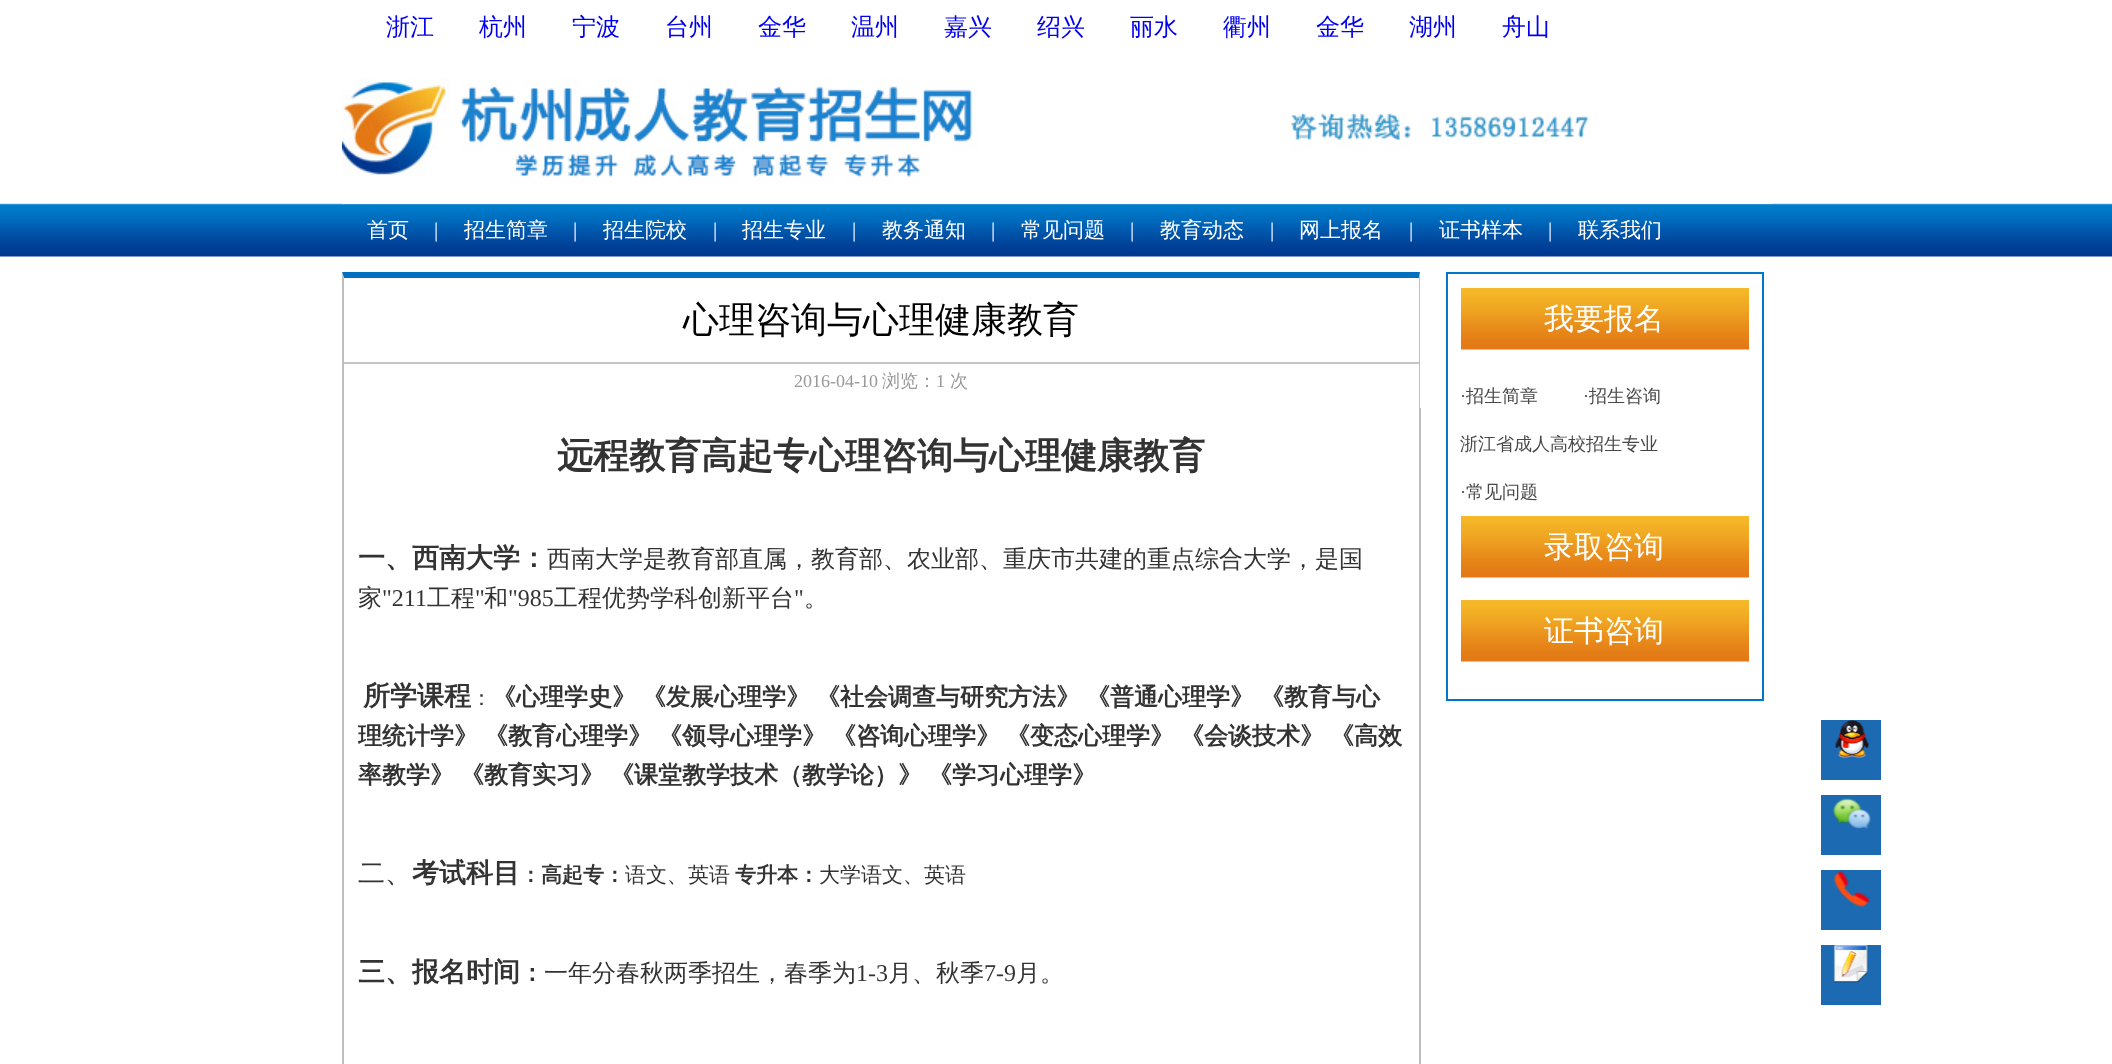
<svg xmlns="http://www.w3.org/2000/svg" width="2112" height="1064">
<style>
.a{font:500 24px WenQuanYi Zen Hei;fill:#00e}
.b{font:500 21px WenQuanYi Zen Hei;fill:#fff}
.c{font:21px Liberation Serif;fill:#fff}
.d{font:500 36px WenQuanYi Zen Hei;fill:#000}
.e{font:18px Liberation Serif;fill:#999}
.f{font:500 18px WenQuanYi Zen Hei;fill:#999}
.g{font:bold 36px WenQuanYi Zen Hei;fill:#333}
.h{font:bold 27px WenQuanYi Zen Hei;fill:#333}
.i{font:500 24px WenQuanYi Zen Hei;fill:#333}
.j{font:24px Liberation Serif;fill:#333}
.k{font:500 21px WenQuanYi Zen Hei;fill:#333}
.l{font:bold 24px WenQuanYi Zen Hei;fill:#333}
.m{font:500 27px WenQuanYi Zen Hei;fill:#333}
.n{font:bold 21px WenQuanYi Zen Hei;fill:#333}
.o{font:500 30px WenQuanYi Zen Hei;fill:#fff}
.p{font:18px Liberation Serif;fill:#494848}
.q{font:500 18px WenQuanYi Zen Hei;fill:#494848}
</style>
<rect width="100%" height="100%" fill="#fff"/>
<image href="1.png" x="0" y="203" width="2112" height="54"/>
<image href="2.png" x="342" y="78" width="1430" height="126"/>
<path fill="#006fc0" d="M342 272h1078l-1 6h-1075z"/>
<path fill="#bebebe" d="M1420 272v136h-1v-130z"/>
<path fill="#bebebe" d="M342 408v-136l2 6v130z"/>
<path fill="#c5c6c8" d="M344 362h1075v2H344z"/>
<path fill="#bebebe" d="M1419 408h2v656H1419z"/>
<path fill="#bebebe" d="M342 408h2v656H342z"/>
<path fill="none" stroke="#0077c7" stroke-width="2" d="M1447 273h316v427H1447z"/>
<image href="3.png" x="1461" y="288" width="288" height="62"/>
<image href="3.png" x="1461" y="516" width="288" height="62"/>
<image href="3.png" x="1461" y="600" width="288" height="62"/>
<path fill="#1c6ab2" d="M1821 720h60v60H1821z"/>
<image href="4.png" x="1835" y="720" width="34" height="38"/>
<path fill="#1c6ab2" d="M1821 795h60v60H1821z"/>
<image href="5.png" x="1832" y="798" width="39" height="31"/>
<path fill="#1c6ab2" d="M1821 870h60v60H1821z"/>
<image href="6.png" x="1833" y="871" width="37" height="36"/>
<path fill="#1c6ab2" d="M1821 945h60v60H1821z"/>
<image href="7.png" x="1833" y="945" width="36" height="38"/>
<text class="a" x="386" y="35">浙江</text>
<text class="a" x="479" y="35">杭州</text>
<text class="a" x="572" y="35">宁波</text>
<text class="a" x="665" y="35">台州</text>
<text class="a" x="758" y="35">金华</text>
<text class="a" x="851" y="35">温州</text>
<text class="a" x="944" y="35">嘉兴</text>
<text class="a" x="1037" y="35">绍兴</text>
<text class="a" x="1130" y="35">丽水</text>
<text class="a" x="1223" y="35">衢州</text>
<text class="a" x="1316" y="35">金华</text>
<text class="a" x="1409" y="35">湖州</text>
<text class="a" x="1502" y="35">舟山</text>
<text class="b" x="367" y="237">首页</text>
<text class="c" x="434" y="237">|</text>
<text class="b" x="464" y="237">招生简章</text>
<text class="c" x="573" y="237">|</text>
<text class="b" x="603" y="237">招生院校</text>
<text class="c" x="713" y="237">|</text>
<text class="b" x="742" y="237">招生专业</text>
<text class="c" x="852" y="237">|</text>
<text class="b" x="882" y="237">教务通知</text>
<text class="c" x="991" y="237">|</text>
<text class="b" x="1021" y="237">常见问题</text>
<text class="c" x="1130" y="237">|</text>
<text class="b" x="1160" y="237">教育动态</text>
<text class="c" x="1270" y="237">|</text>
<text class="b" x="1299" y="237">网上报名</text>
<text class="c" x="1409" y="237">|</text>
<text class="b" x="1439" y="237">证书样本</text>
<text class="c" x="1548" y="237">|</text>
<text class="b" x="1578" y="237">联系我们</text>
<text class="d" x="683" y="332">心理咨询与心理健康教育</text>
<text class="e" x="794" y="387">2016-04-10</text>
<text class="f" x="882" y="387">浏览：</text>
<text class="e" x="936" y="387">1</text>
<text class="f" x="950" y="387">次</text>
<text class="g" x="557" y="468">远程教育高起专心理咨询与心理健康教育</text>
<text class="h" x="358" y="567">一、西南大学：</text>
<text class="i" x="547" y="567">西南大学是教育部直属，教育部、农业部、重庆市共建的重点综合大学，是国</text>
<text class="i" x="358" y="606">家</text>
<text class="j" x="382" y="606">"211</text>
<text class="i" x="427" y="606">工程</text>
<text class="j" x="475" y="606">"</text>
<text class="i" x="484" y="606">和</text>
<text class="j" x="508" y="606">"985</text>
<text class="i" x="554" y="606">工程优势学科创新平台</text>
<text class="j" x="794" y="606">"</text>
<text class="i" x="804" y="606">。</text>
<text class="h" x="363" y="705">所学课程</text>
<text class="k" x="471" y="705">：</text>
<text class="l" x="492" y="705">《心理学史》</text>
<text class="l" x="642" y="705">《发展心理学》</text>
<text class="l" x="816" y="705">《社会调查与研究方法》</text>
<text class="l" x="1086" y="705">《普通心理学》</text>
<text class="l" x="1260" y="705">《教育与心</text>
<text class="l" x="358" y="744">理统计学》</text>
<text class="l" x="484" y="744">《教育心理学》</text>
<text class="l" x="658" y="744">《领导心理学》</text>
<text class="l" x="832" y="744">《咨询心理学》</text>
<text class="l" x="1006" y="744">《变态心理学》</text>
<text class="l" x="1180" y="744">《会谈技术》</text>
<text class="l" x="1330" y="744">《高效</text>
<text class="l" x="358" y="783">率教学》</text>
<text class="l" x="460" y="783">《教育实习》</text>
<text class="l" x="610" y="783">《课堂教学技术（教学论）》</text>
<text class="l" x="928" y="783">《学习心理学》</text>
<text class="m" x="358" y="882">二、</text>
<text class="h" x="412" y="882">考试科目</text>
<text class="n" x="520" y="882">：高起专：</text>
<text class="k" x="625" y="882">语文、英语</text>
<text class="n" x="735" y="882">专升本：</text>
<text class="k" x="819" y="882">大学语文、英语</text>
<text class="h" x="358" y="981">三、报名时间</text>
<text class="l" x="520" y="981">：</text>
<text class="i" x="544" y="981">一年分春秋两季招生，春季为</text>
<text class="j" x="856" y="981">1-3</text>
<text class="i" x="888" y="981">月、秋季</text>
<text class="j" x="984" y="981">7-9</text>
<text class="i" x="1016" y="981">月。</text>
<text class="o" x="1544" y="329">我要报名</text>
<text class="p" x="1460" y="402">·</text>
<text class="q" x="1466" y="402">招生简章</text>
<text class="p" x="1583" y="402">·</text>
<text class="q" x="1589" y="402">招生咨询</text>
<text class="q" x="1460" y="450">浙江省成人高校招生专业</text>
<text class="p" x="1460" y="498">·</text>
<text class="q" x="1466" y="498">常见问题</text>
<text class="o" x="1544" y="557">录取咨询</text>
<text class="o" x="1544" y="641">证书咨询</text>
</svg>
